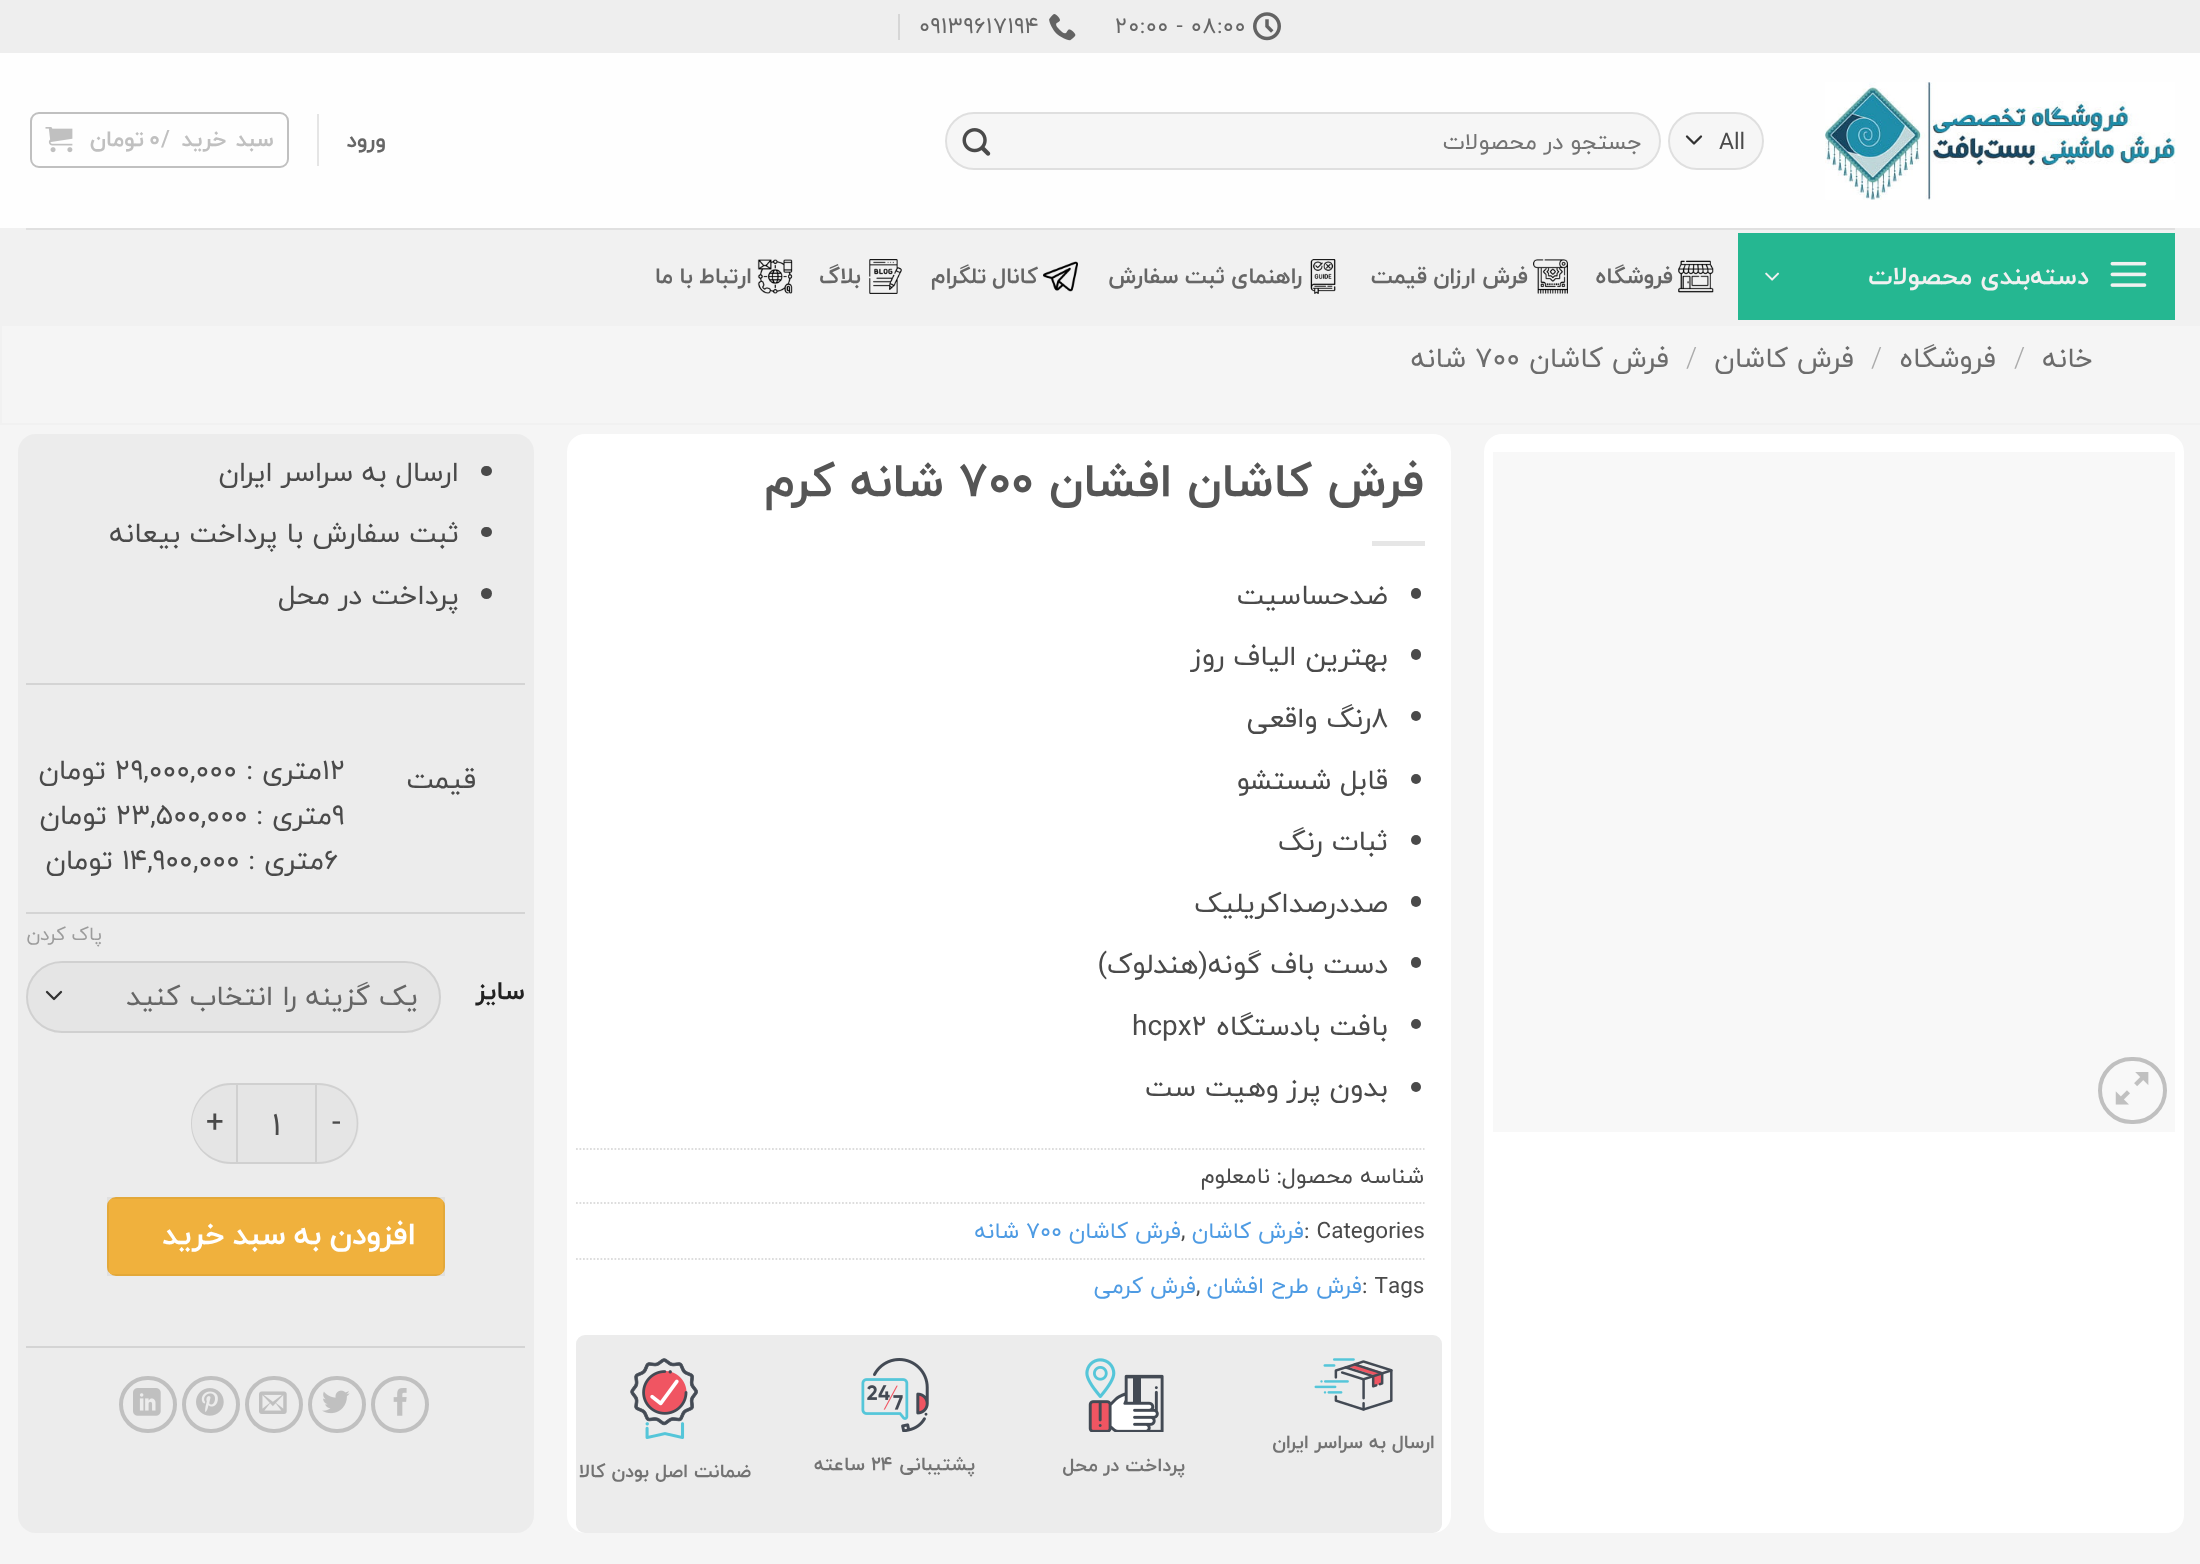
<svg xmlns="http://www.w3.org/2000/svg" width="2200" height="1564">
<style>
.a{font:22.5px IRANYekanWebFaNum;letter-spacing:0.5px;fill:#666}
.b{font:23px IRANYekanWebFaNum;fill:#4a4a4a}
.c{font:23px IRANYekanWebFaNum;direction:rtl;fill:#737373}
.d{font:bold 22.5px IRANYekanWebFaNum;letter-spacing:0.5px;direction:rtl;fill:#666}
.e{font:bold 22.5px IRANYekanWebFaNum;letter-spacing:0.75px;direction:rtl;fill:#c0c0c0}
.f{font:bold 22.5px IRANYekanWebFaNum;letter-spacing:0.75px;fill:#c0c0c0}
.g{font:bold 25.25px IRANYekanWebFaNum;direction:rtl;fill:#f1f1f1}
.h{font:28px IRANYekanWebFaNum;direction:rtl;fill:#6c6c6c}
.i{font:300 28px IRANYekanWebFaNum;fill:#ababab}
.j{font:28px IRANYekanWebFaNum;fill:#6c6c6c}
.k{font:bold 47.5px IRANYekanWebFaNum;direction:rtl;fill:#555}
.l{font:bold 47.5px IRANYekanWebFaNum;fill:#555}
.m{font:28px IRANYekanWebFaNum;direction:rtl;fill:#4a4a4a}
.n{font:28px IRANYekanWebFaNum;fill:#4a4a4a}
.o{font:22.5px IRANYekanWebFaNum;direction:rtl;fill:#4a4a4a}
.p{font:22.5px IRANYekanWebFaNum;fill:#4a4a4a}
.q{font:22.5px IRANYekanWebFaNum;direction:rtl;fill:#4e9be3}
.r{font:22.5px IRANYekanWebFaNum;fill:#4e9be3}
.s{font:bold 19px IRANYekanWebFaNum;direction:rtl;fill:#737373}
.t{font:bold 19px IRANYekanWebFaNum;fill:#737373}
.u{font:bold 26px IRANYekanWebFaNum;direction:rtl;fill:#222}
.v{font:19px IRANYekanWebFaNum;direction:rtl;fill:#9c9c9c}
.w{font:28.1px IRANYekanWebFaNum;direction:rtl;fill:#666}
.x{font:31.25px IRANYekanWebFaNum;letter-spacing:0.9px;fill:#4a4a4a}
.y{font:32px IRANYekanWebFaNum;fill:#4a4a4a}
.z{font:bold 31.25px IRANYekanWebFaNum;letter-spacing:0.9px;direction:rtl;fill:#fff}
</style>
<rect width="100%" height="100%" fill="#f5f5f5"/>
<path fill="#eee" d="M0 0h2200v53H0z"/>
<image href="1.png" x="1253" y="12" width="28" height="29"/>
<image href="2.png" x="1049" y="14" width="27" height="27"/>
<path fill="#d6d6d6" d="M898 14h2v26H898z"/>
<path fill="#fefefe" d="M0 53h2200v175H0z"/>
<image href="3.png" x="1825" y="82" width="351" height="118"/>
<rect fill="#f6f6f6" x="1668" y="112" width="96" height="58" rx="29"/>
<path fill="none" stroke="#333" stroke-width="2.3" stroke-linecap="round" stroke-linejoin="round" d="M1687 136.5l7 7l7-7"/>
<rect fill="none" stroke="#00000017" stroke-width="2" x="1669" y="113" width="94" height="56" rx="28"/>
<rect fill="#f6f6f6" x="945" y="112" width="716" height="58" rx="29"/>
<rect fill="none" stroke="#00000017" stroke-width="2" x="946" y="113" width="714" height="56" rx="28"/>
<image href="4.png" x="962" y="128" width="29" height="28"/>
<path fill="#e5e5e5" d="M317 114h2v52H317z"/>
<rect fill="none" stroke="#c0c0c0" stroke-width="2" x="31" y="113" width="257" height="54" rx="8"/>
<image href="5.png" x="45" y="127" width="28" height="26"/>
<path fill="#f1f1f1" d="M0 228h2200v96H0z"/>
<path fill="#e0e0e0" d="M26 228h2149v2H26z"/>
<path fill="#25b791" d="M1738 233h437v87H1738z"/>
<image href="6.png" x="2110" y="261" width="37" height="26"/>
<image href="7.png" x="1765" y="272" width="15" height="9"/>
<image href="8.png" x="1678" y="260" width="36" height="33"/>
<image href="9.png" x="1533" y="259" width="35" height="35"/>
<image href="10.png" x="1310" y="259" width="26" height="35"/>
<image href="11.png" x="1043" y="261" width="35" height="31"/>
<image href="12.png" x="869" y="259" width="33" height="35"/>
<image href="13.png" x="757" y="259" width="36" height="35"/>
<path fill="none" stroke="#f1f1f1" stroke-width="2" d="M1 325h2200v99H1z"/>
<rect fill="#fff" x="1484" y="434" width="700" height="1099" rx="18"/>
<path fill="#f8f8f8" d="M1493 452h682v680H1493z"/>
<rect fill="none" stroke="#c0c0c0" stroke-width="4" x="2100" y="1059" width="65" height="63" rx="31.5"/>
<image href="14.png" x="2115" y="1072" width="34" height="33"/>
<rect fill="#fff" x="567" y="434" width="884" height="1099" rx="18"/>
<path fill="#e6e6e6" d="M1372 541h53v5H1372z"/>
<rect fill="#4a4a4a" x="1411" y="588" width="10" height="11" rx="5"/>
<rect fill="#4a4a4a" x="1411" y="649" width="10" height="11" rx="5"/>
<circle fill="#4a4a4a" cx="1416" cy="716" r="5"/>
<circle fill="#4a4a4a" cx="1416" cy="779" r="5"/>
<circle fill="#4a4a4a" cx="1416" cy="840" r="5"/>
<rect fill="#4a4a4a" x="1411" y="896" width="10" height="11" rx="5"/>
<rect fill="#4a4a4a" x="1411" y="957" width="10" height="11" rx="5"/>
<circle fill="#4a4a4a" cx="1416" cy="1024" r="5"/>
<circle fill="#4a4a4a" cx="1416" cy="1087" r="5"/>
<path fill="none" stroke="#ddd" stroke-width="1.8" stroke-dasharray="1.75 1.75" d="M576 1149h848.5"/>
<path fill="none" stroke="#ddd" stroke-width="1.8" stroke-dasharray="1.75 1.75" d="M576 1203h848.5"/>
<path fill="none" stroke="#ddd" stroke-width="1.8" stroke-dasharray="1.75 1.75" d="M576 1259h848.5"/>
<rect fill="#ececec" x="576" y="1335" width="866" height="198" rx="9"/>
<image href="15.png" x="1314" y="1358" width="79" height="53"/>
<image href="16.png" x="1085" y="1358" width="79" height="74"/>
<image href="17.png" x="861" y="1358" width="68" height="74"/>
<image href="18.png" x="630" y="1358" width="68" height="81"/>
<rect fill="#ececec" x="18" y="434" width="516" height="1099" rx="18"/>
<rect fill="#4a4a4a" x="481" y="466" width="11" height="10" rx="5"/>
<rect fill="#4a4a4a" x="481" y="527" width="11" height="10" rx="5"/>
<circle fill="#4a4a4a" cx="486.5" cy="593.5" r="5.5"/>
<path fill="#d4d4d4" d="M26 683h499v2H26z"/>
<path fill="#d4d4d4" d="M26 912h499v2H26z"/>
<rect fill="#e5e5e5" x="26" y="961" width="415" height="72" rx="36"/>
<path fill="none" stroke="#333" stroke-width="2.3" stroke-linecap="round" stroke-linejoin="round" d="M47 992l7 7l7-7"/>
<rect fill="none" stroke="#00000017" stroke-width="2" x="27" y="962" width="413" height="70" rx="35"/>
<path fill="#e5e5e5" d="M317 1083h2c22 0 40 18 40 40v1c0 22-18 40-40 40h-2z"/>
<path fill="#d1d1d1" fill-rule="evenodd" d="M317 1083c55 0 55 81 0 81zm0 2c53 0 53 77 0 77z"/>
<path fill="#e5e5e5" stroke="#d0d0d0" stroke-width="2" d="M237 1084h79v79H237z"/>
<path fill="#e5e5e5" d="M231 1083h5v81h-5c-22 0-40-18-40-40v-1c0-22 18-40 40-40z"/>
<path fill="#00000017" fill-rule="evenodd" d="M231 1083h5v81h-5c-22 0-40-18-40-40c0-23 18-41 40-41zm0 2h5v77h-5c-21 0-39-17-39-38c0-22 18-39 39-39z"/>
<rect fill="#f0b13d" x="107" y="1197" width="338" height="79" rx="9"/>
<path fill="none" stroke="#0000000d" stroke-width="2" d="M108 1198h336v77H108z"/>
<path fill="#d4d4d4" d="M26 1346h499v2H26z"/>
<rect fill="none" stroke="#c0c0c0" stroke-width="4" x="373" y="1378" width="54" height="53" rx="26.5"/>
<image href="19.png" x="393" y="1388" width="14" height="28"/>
<rect fill="none" stroke="#c0c0c0" stroke-width="4" x="310" y="1378" width="54" height="53" rx="26.5"/>
<image href="20.png" x="322" y="1390" width="28" height="24"/>
<rect fill="none" stroke="#c0c0c0" stroke-width="4" x="247" y="1378" width="54" height="53" rx="26.5"/>
<image href="21.png" x="259" y="1391" width="28" height="23"/>
<rect fill="none" stroke="#c0c0c0" stroke-width="4" x="184" y="1378" width="54" height="53" rx="26.5"/>
<image href="22.png" x="196" y="1388" width="28" height="28"/>
<rect fill="none" stroke="#c0c0c0" stroke-width="4" x="121" y="1378" width="54" height="53" rx="26.5"/>
<image href="23.png" x="133" y="1388" width="28" height="28"/>
<text class="a" x="1115" y="33">20:00 - 08:00</text>
<text class="a" x="919" y="33">09139617194</text>
<text class="b" x="1719" y="149">All</text>
<text class="c" x="1642" y="149">جستجو در محصولات</text>
<text class="d" x="386" y="147">ورود</text>
<text class="e" x="274" y="146" word-spacing="2">سبد خرید</text>
<text class="f" x="161" y="146">/</text>
<text class="f" x="149" y="146">0</text>
<text class="e" x="144" y="146">تومان</text>
<text class="g" x="2089" y="284">دسته‌بندی محصولات</text>
<text class="d" x="1673" y="283">فروشگاه</text>
<text class="d" x="1528" y="283" word-spacing="-1">فرش ارزان قیمت</text>
<text class="d" x="1302" y="283" word-spacing="-1">راهنمای ثبت سفارش</text>
<text class="d" x="1038" y="283" word-spacing="-1">کانال تلگرام</text>
<text class="d" x="861" y="283">بلاگ</text>
<text class="d" x="752" y="283" word-spacing="-1">ارتباط با ما</text>
<text class="h" x="2093" y="367">خانه</text>
<text class="i" x="2014" y="367">/</text>
<text class="h" x="1996" y="367">فروشگاه</text>
<text class="i" x="1871" y="367">/</text>
<text class="h" x="1854" y="367">فرش کاشان</text>
<text class="i" x="1686" y="367">/</text>
<text class="h" x="1669" y="367">فرش کاشان</text>
<text class="j" x="1475" y="367">700</text>
<text class="h" x="1466" y="367">شانه</text>
<text class="k" x="1424" y="496">فرش کاشان افشان</text>
<text class="l" x="959" y="496">۷۰۰</text>
<text class="k" x="944" y="496">شانه کرم</text>
<text class="m" x="1388" y="604">ضدحساسیت</text>
<text class="m" x="1388" y="665">بهترین الیاف روز</text>
<text class="n" x="1371" y="727">۸</text>
<text class="m" x="1371" y="727">رنگ واقعی</text>
<text class="m" x="1388" y="789">قابل شستشو</text>
<text class="m" x="1388" y="850">ثبات رنگ</text>
<text class="m" x="1388" y="912">صددرصداکریلیک</text>
<text class="m" x="1388" y="973">دست باف گونه(هندلوک)</text>
<text class="m" x="1388" y="1035">بافت بادستگاه</text>
<text class="n" x="1132" y="1035">hcpx2</text>
<text class="m" x="1388" y="1096">بدون پرز وهیت ست</text>
<text class="o" x="1424" y="1183">شناسه محصول:</text>
<text class="o" x="1270" y="1183">نامعلوم</text>
<text class="p" x="1304" y="1238">: Categories</text>
<text class="q" x="1304" y="1238">فرش کاشان</text>
<text class="p" x="1181" y="1238">,</text>
<text class="q" x="1181" y="1238">فرش کاشان</text>
<text class="r" x="1026" y="1238">700</text>
<text class="q" x="1019" y="1238">شانه</text>
<text class="p" x="1362" y="1293">: Tags</text>
<text class="q" x="1362" y="1293">فرش طرح افشان</text>
<text class="p" x="1196" y="1293">,</text>
<text class="q" x="1196" y="1293">فرش کرمی</text>
<text class="s" x="1435" y="1448">ارسال به سراسر ایران</text>
<text class="s" x="1185" y="1471">پرداخت در محل</text>
<text class="s" x="975" y="1470">پشتیبانی</text>
<text class="t" x="871" y="1470">۲۴</text>
<text class="s" x="865" y="1470">ساعته</text>
<text class="s" x="751" y="1477">ضمانت اصل بودن کالا</text>
<text class="m" x="459" y="481">ارسال به سراسر ایران</text>
<text class="m" x="459" y="542">ثبت سفارش با پرداخت بیعانه</text>
<text class="m" x="459" y="604">پرداخت در محل</text>
<text class="m" x="476" y="788">قیمت</text>
<text class="n" x="322" y="779">12</text>
<text class="m" x="322" y="779">متری :</text>
<text class="n" x="115" y="779">29,000,000</text>
<text class="m" x="106" y="779">تومان</text>
<text class="n" x="332" y="824">9</text>
<text class="m" x="332" y="824">متری :</text>
<text class="n" x="116" y="824">23,500,000</text>
<text class="m" x="107" y="824">تومان</text>
<text class="n" x="324" y="869">6</text>
<text class="m" x="324" y="869">متری :</text>
<text class="n" x="122" y="869">14,900,000</text>
<text class="m" x="113" y="869">تومان</text>
<text class="u" x="525" y="999">سایز</text>
<text class="v" x="102" y="940">پاک کردن</text>
<text class="w" x="418" y="1005">یک گزینه را انتخاب کنید</text>
<text class="x" x="332" y="1132">-</text>
<text class="y" x="272" y="1135">1</text>
<text class="x" x="206" y="1132">+</text>
<text class="z" x="416" y="1244" word-spacing="-2">افزودن به سبد خرید</text>
</svg>
